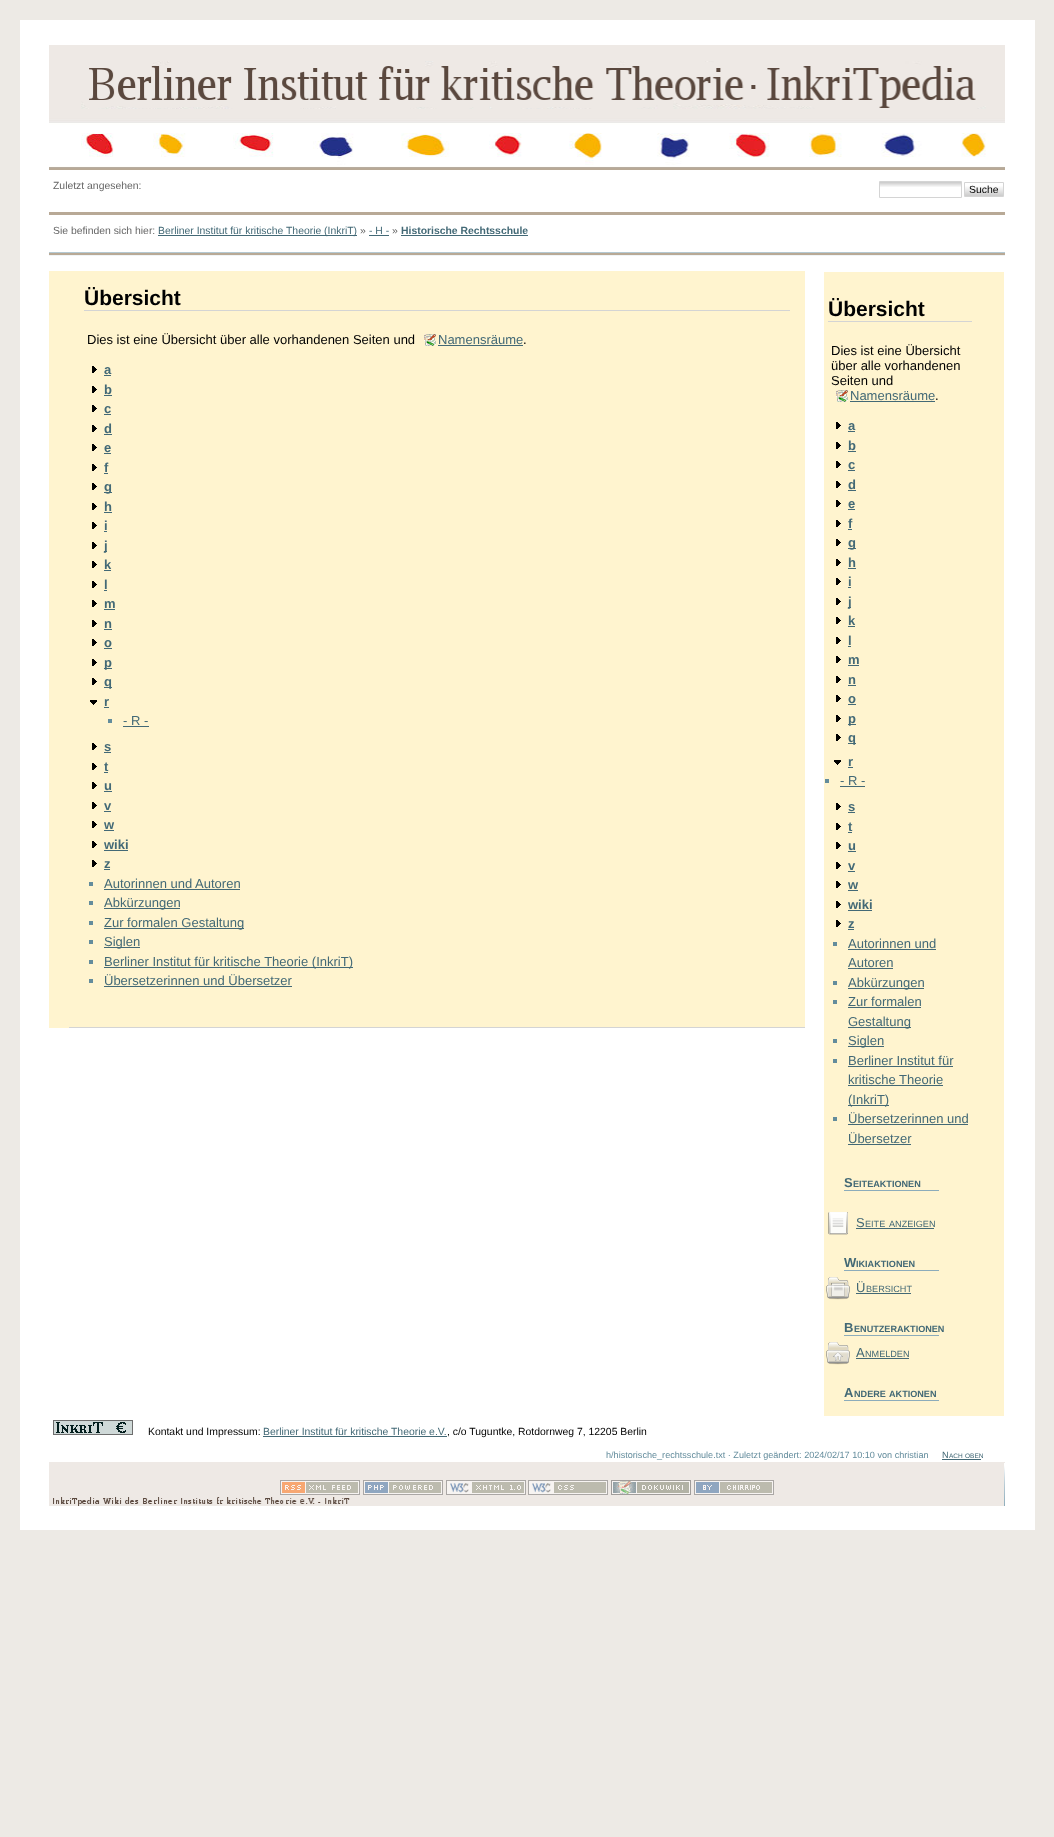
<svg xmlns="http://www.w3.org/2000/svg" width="1054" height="1837">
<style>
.a{font:10.4px Liberation Sans;fill:#666}
.b{font:10.4px Liberation Sans;fill:#000}
.c{font:10.4px Liberation Sans;fill:#436976}
.d{font:bold 10.4px Liberation Sans;fill:#436976}
.e{font:bold 21px Liberation Sans;fill:#000}
.f{font:13px Liberation Sans;fill:#000}
.g{font:13px Liberation Sans;fill:#436976}
.h{font:bold 13px Liberation Sans;fill:#436976}
.i{font:bold 9.1px Liberation Sans;fill:#436976}
.j{font:9.1px Liberation Sans;fill:#436976}
.k{font:9.1px Liberation Sans;fill:#638c9c}
.l{font:6.5px Liberation Sans;fill:#436976}
</style>
<rect width="100%" height="100%" fill="#edeae5"/>
<path fill="#fff" d="M20 20h1015v1510H20z"/>
<image href="1.png" x="49" y="45" width="956" height="125"/>
<image href="2.png" x="880" y="182" width="81" height="5"/>
<path fill="none" stroke="#d4d4d4" d="M879.5 181.5h82v16H879.5z"/>
<image href="3.png" x="965" y="186" width="38" height="10"/>
<path fill="none" stroke="#d4d4d4" d="M964.5 182.5h39v14H964.5z"/>
<path fill="#b8a996" d="M49 212h956v3H49z"/>
<path fill="#436976" d="M158 235h199v1H158z"/>
<path fill="#436976" d="M369 235h20v1H369z"/>
<path fill="#436976" d="M401 235h127v1H401z"/>
<path fill="#b4c9d3" d="M49 252h956v1H49z"/>
<path fill="#b8a996" d="M49 253h956v2H49z"/>
<path fill="#f0f4f6" d="M49 255h956v1H49z"/>
<path fill="#fff4cf" d="M49 271h756v757H49z"/>
<path fill="#d4d4d4" d="M69 1027h736v1H69z"/>
<path fill="#d4d4d4" d="M84 310h706v1H84z"/>
<image href="4.png" x="424" y="334" width="12" height="12"/>
<path fill="#436976" d="M438 345h85v1H438z"/>
<image href="5.png" x="92" y="366" width="5" height="7"/>
<path fill="#436976" d="M104 375h7v1H104z"/>
<image href="5.png" x="92" y="386" width="5" height="7"/>
<path fill="#436976" d="M104 395h8v1H104z"/>
<image href="5.png" x="92" y="405" width="5" height="7"/>
<path fill="#436976" d="M104 414h7v1H104z"/>
<image href="5.png" x="92" y="425" width="5" height="7"/>
<path fill="#436976" d="M104 434h8v1H104z"/>
<image href="5.png" x="92" y="444" width="5" height="7"/>
<path fill="#436976" d="M104 453h7v1H104z"/>
<image href="5.png" x="92" y="464" width="5" height="7"/>
<path fill="#436976" d="M104 473h4v1H104z"/>
<image href="5.png" x="92" y="483" width="5" height="7"/>
<path fill="#436976" d="M104 492h8v1H104z"/>
<image href="5.png" x="92" y="503" width="5" height="7"/>
<path fill="#436976" d="M104 512h8v1H104z"/>
<image href="5.png" x="92" y="522" width="5" height="7"/>
<path fill="#436976" d="M104 531h3v1H104z"/>
<image href="5.png" x="92" y="542" width="5" height="7"/>
<path fill="#436976" d="M104 551h3v1H104z"/>
<image href="5.png" x="92" y="561" width="5" height="7"/>
<path fill="#436976" d="M104 570h7v1H104z"/>
<image href="5.png" x="92" y="581" width="5" height="7"/>
<path fill="#436976" d="M104 590h3v1H104z"/>
<image href="5.png" x="92" y="600" width="5" height="7"/>
<path fill="#436976" d="M104 609h11v1H104z"/>
<image href="5.png" x="92" y="620" width="5" height="7"/>
<path fill="#436976" d="M104 629h8v1H104z"/>
<image href="5.png" x="92" y="639" width="5" height="7"/>
<path fill="#436976" d="M104 648h8v1H104z"/>
<image href="5.png" x="92" y="659" width="5" height="7"/>
<path fill="#436976" d="M104 668h8v1H104z"/>
<image href="5.png" x="92" y="678" width="5" height="7"/>
<path fill="#436976" d="M104 687h8v1H104z"/>
<image href="6.png" x="90" y="700" width="7" height="5"/>
<path fill="#436976" d="M104 707h5v1H104z"/>
<path fill="#638c9c" d="M108 719h4v4H108z"/>
<path fill="#436976" d="M123 726h26v1H123z"/>
<image href="5.png" x="92" y="743" width="5" height="7"/>
<path fill="#436976" d="M104 752h7v1H104z"/>
<image href="5.png" x="92" y="763" width="5" height="7"/>
<path fill="#436976" d="M104 772h4v1H104z"/>
<image href="5.png" x="92" y="782" width="5" height="7"/>
<path fill="#436976" d="M104 791h8v1H104z"/>
<image href="5.png" x="92" y="802" width="5" height="7"/>
<path fill="#436976" d="M104 811h7v1H104z"/>
<image href="5.png" x="92" y="821" width="5" height="7"/>
<path fill="#436976" d="M104 830h10v1H104z"/>
<image href="5.png" x="92" y="841" width="5" height="7"/>
<path fill="#436976" d="M104 850h24v1H104z"/>
<image href="5.png" x="92" y="860" width="5" height="7"/>
<path fill="#436976" d="M104 869h6v1H104z"/>
<path fill="#638c9c" d="M89 882h4v4H89z"/>
<path fill="#436976" d="M104 889h136v1H104z"/>
<path fill="#638c9c" d="M89 901h4v4H89z"/>
<path fill="#436976" d="M104 908h76v1H104z"/>
<path fill="#638c9c" d="M89 921h4v4H89z"/>
<path fill="#436976" d="M104 928h140v1H104z"/>
<path fill="#638c9c" d="M89 940h4v4H89z"/>
<path fill="#436976" d="M104 947h36v1H104z"/>
<path fill="#638c9c" d="M89 960h4v4H89z"/>
<path fill="#436976" d="M104 967h249v1H104z"/>
<path fill="#638c9c" d="M89 979h4v4H89z"/>
<path fill="#436976" d="M104 986h188v1H104z"/>
<path fill="#fff4cf" d="M824 272h180v1144H824z"/>
<path fill="#d4d4d4" d="M828 321h144v1H828z"/>
<image href="4.png" x="836" y="390" width="12" height="12"/>
<path fill="#436976" d="M850 401h85v1H850z"/>
<image href="5.png" x="836" y="422" width="5" height="7"/>
<path fill="#436976" d="M848 431h7v1H848z"/>
<image href="5.png" x="836" y="442" width="5" height="7"/>
<path fill="#436976" d="M848 451h8v1H848z"/>
<image href="5.png" x="836" y="461" width="5" height="7"/>
<path fill="#436976" d="M848 470h7v1H848z"/>
<image href="5.png" x="836" y="481" width="5" height="7"/>
<path fill="#436976" d="M848 490h8v1H848z"/>
<image href="5.png" x="836" y="500" width="5" height="7"/>
<path fill="#436976" d="M848 509h7v1H848z"/>
<image href="5.png" x="836" y="520" width="5" height="7"/>
<path fill="#436976" d="M848 529h4v1H848z"/>
<image href="5.png" x="836" y="539" width="5" height="7"/>
<path fill="#436976" d="M848 548h8v1H848z"/>
<image href="5.png" x="836" y="559" width="5" height="7"/>
<path fill="#436976" d="M848 568h8v1H848z"/>
<image href="5.png" x="836" y="578" width="5" height="7"/>
<path fill="#436976" d="M848 587h3v1H848z"/>
<image href="5.png" x="836" y="598" width="5" height="7"/>
<path fill="#436976" d="M848 607h3v1H848z"/>
<image href="5.png" x="836" y="617" width="5" height="7"/>
<path fill="#436976" d="M848 626h7v1H848z"/>
<image href="5.png" x="836" y="637" width="5" height="7"/>
<path fill="#436976" d="M848 646h3v1H848z"/>
<image href="5.png" x="836" y="656" width="5" height="7"/>
<path fill="#436976" d="M848 665h11v1H848z"/>
<image href="5.png" x="836" y="676" width="5" height="7"/>
<path fill="#436976" d="M848 685h8v1H848z"/>
<image href="5.png" x="836" y="695" width="5" height="7"/>
<path fill="#436976" d="M848 704h8v1H848z"/>
<image href="5.png" x="836" y="715" width="5" height="7"/>
<path fill="#436976" d="M848 724h8v1H848z"/>
<image href="5.png" x="836" y="734" width="5" height="7"/>
<path fill="#436976" d="M848 743h8v1H848z"/>
<image href="6.png" x="834" y="760" width="7" height="5"/>
<path fill="#436976" d="M848 767h5v1H848z"/>
<path fill="#638c9c" d="M825 779h4v4H825z"/>
<path fill="#436976" d="M840 786h25v1H840z"/>
<image href="5.png" x="836" y="803" width="5" height="7"/>
<path fill="#436976" d="M848 812h7v1H848z"/>
<image href="5.png" x="836" y="823" width="5" height="7"/>
<path fill="#436976" d="M848 832h4v1H848z"/>
<image href="5.png" x="836" y="842" width="5" height="7"/>
<path fill="#436976" d="M848 851h8v1H848z"/>
<image href="5.png" x="836" y="862" width="5" height="7"/>
<path fill="#436976" d="M848 871h7v1H848z"/>
<image href="5.png" x="836" y="881" width="5" height="7"/>
<path fill="#436976" d="M848 890h10v1H848z"/>
<image href="5.png" x="836" y="901" width="5" height="7"/>
<path fill="#436976" d="M848 910h24v1H848z"/>
<image href="5.png" x="836" y="920" width="5" height="7"/>
<path fill="#436976" d="M848 929h6v1H848z"/>
<path fill="#638c9c" d="M833 942h4v4H833z"/>
<path fill="#436976" d="M848 949h88v1H848z"/>
<path fill="#436976" d="M848 968h45v1H848z"/>
<path fill="#638c9c" d="M833 981h4v4H833z"/>
<path fill="#436976" d="M848 988h76v1H848z"/>
<path fill="#638c9c" d="M833 1000h4v4H833z"/>
<path fill="#436976" d="M848 1007h73v1H848z"/>
<path fill="#436976" d="M848 1027h63v1H848z"/>
<path fill="#638c9c" d="M833 1039h4v4H833z"/>
<path fill="#436976" d="M848 1046h36v1H848z"/>
<path fill="#638c9c" d="M833 1059h4v4H833z"/>
<path fill="#436976" d="M848 1066h105v1H848z"/>
<path fill="#436976" d="M848 1085h95v1H848z"/>
<path fill="#436976" d="M848 1105h41v1H848z"/>
<path fill="#638c9c" d="M833 1117h4v4H833z"/>
<path fill="#436976" d="M848 1124h120v1H848z"/>
<path fill="#436976" d="M848 1144h63v1H848z"/>
<path fill="#8cacbb" d="M844 1190h95v1H844z"/>
<image href="7.png" x="828" y="1212" width="20" height="23"/>
<path fill="#436976" d="M856 1228h78v1H856z"/>
<path fill="#8cacbb" d="M844 1270h95v1H844z"/>
<image href="8.png" x="826" y="1277" width="24" height="23"/>
<path fill="#436976" d="M856 1293h55v1H856z"/>
<path fill="#8cacbb" d="M844 1335h95v1H844z"/>
<image href="9.png" x="826" y="1342" width="24" height="23"/>
<path fill="#436976" d="M856 1358h53v1H856z"/>
<path fill="#8cacbb" d="M844 1400h95v1H844z"/>
<image href="10.png" x="53" y="1420" width="80" height="15"/>
<path fill="#436976" d="M263 1436h184v1H263z"/>
<path fill="#436976" d="M942 1459h39v1H942z"/>
<image href="11.png" x="49" y="1462" width="956" height="44"/>
<image href="12.png" x="280" y="1480" width="80" height="15"/>
<image href="13.png" x="363" y="1480" width="80" height="15"/>
<image href="14.png" x="446" y="1480" width="80" height="15"/>
<image href="15.png" x="528" y="1480" width="80" height="15"/>
<image href="16.png" x="611" y="1480" width="80" height="15"/>
<image href="17.png" x="694" y="1480" width="80" height="15"/>
<image href="18.png" x="1004" y="1463" width="1" height="43"/>
<text class="a" x="53" y="189">Zuletzt angesehen:</text>
<text class="b" x="969" y="193">Suche</text>
<text class="a" x="53" y="234">Sie befinden sich hier:</text>
<text class="c" x="158" y="234">Berliner Institut für kritische Theorie (InkriT)</text>
<text class="a" x="360" y="234">»</text>
<text class="c" x="369" y="234">- H -</text>
<text class="a" x="392" y="234">»</text>
<text class="d" x="401" y="234">Historische Rechtsschule</text>
<text class="e" x="84" y="305">Übersicht</text>
<text class="f" x="87" y="344">Dies ist eine Übersicht über alle vorhandenen Seiten und</text>
<text class="g" x="438" y="344">Namensräume</text>
<text class="f" x="523" y="344">.</text>
<text class="h" x="104" y="374">a</text>
<text class="h" x="104" y="394">b</text>
<text class="h" x="104" y="413">c</text>
<text class="h" x="104" y="433">d</text>
<text class="h" x="104" y="452">e</text>
<text class="h" x="104" y="472">f</text>
<text class="h" x="104" y="491">g</text>
<text class="h" x="104" y="511">h</text>
<text class="h" x="104" y="530">i</text>
<text class="h" x="104" y="550">j</text>
<text class="h" x="104" y="569">k</text>
<text class="h" x="104" y="589">l</text>
<text class="h" x="104" y="608">m</text>
<text class="h" x="104" y="628">n</text>
<text class="h" x="104" y="647">o</text>
<text class="h" x="104" y="667">p</text>
<text class="h" x="104" y="686">q</text>
<text class="h" x="104" y="706">r</text>
<text class="g" x="123" y="725">- R -</text>
<text class="h" x="104" y="751">s</text>
<text class="h" x="104" y="771">t</text>
<text class="h" x="104" y="790">u</text>
<text class="h" x="104" y="810">v</text>
<text class="h" x="104" y="829">w</text>
<text class="h" x="104" y="849">wiki</text>
<text class="h" x="104" y="868">z</text>
<text class="g" x="104" y="888">Autorinnen und Autoren</text>
<text class="g" x="104" y="907">Abkürzungen</text>
<text class="g" x="104" y="927">Zur formalen Gestaltung</text>
<text class="g" x="104" y="946">Siglen</text>
<text class="g" x="104" y="966">Berliner Institut für kritische Theorie (InkriT)</text>
<text class="g" x="104" y="985">Übersetzerinnen und Übersetzer</text>
<text class="e" x="828" y="316">Übersicht</text>
<text class="f" x="831" y="355">Dies ist eine Übersicht</text>
<text class="f" x="831" y="370">über alle vorhandenen</text>
<text class="f" x="831" y="385">Seiten und</text>
<text class="g" x="850" y="400">Namensräume</text>
<text class="f" x="935" y="400">.</text>
<text class="h" x="848" y="430">a</text>
<text class="h" x="848" y="450">b</text>
<text class="h" x="848" y="469">c</text>
<text class="h" x="848" y="489">d</text>
<text class="h" x="848" y="508">e</text>
<text class="h" x="848" y="528">f</text>
<text class="h" x="848" y="547">g</text>
<text class="h" x="848" y="567">h</text>
<text class="h" x="848" y="586">i</text>
<text class="h" x="848" y="606">j</text>
<text class="h" x="848" y="625">k</text>
<text class="h" x="848" y="645">l</text>
<text class="h" x="848" y="664">m</text>
<text class="h" x="848" y="684">n</text>
<text class="h" x="848" y="703">o</text>
<text class="h" x="848" y="723">p</text>
<text class="h" x="848" y="742">q</text>
<text class="h" x="848" y="766">r</text>
<text class="g" x="840" y="785">- R -</text>
<text class="h" x="848" y="811">s</text>
<text class="h" x="848" y="831">t</text>
<text class="h" x="848" y="850">u</text>
<text class="h" x="848" y="870">v</text>
<text class="h" x="848" y="889">w</text>
<text class="h" x="848" y="909">wiki</text>
<text class="h" x="848" y="928">z</text>
<text class="g" x="848" y="948">Autorinnen und</text>
<text class="g" x="848" y="967">Autoren</text>
<text class="g" x="848" y="987">Abkürzungen</text>
<text class="g" x="848" y="1006">Zur formalen</text>
<text class="g" x="848" y="1026">Gestaltung</text>
<text class="g" x="848" y="1045">Siglen</text>
<text class="g" x="848" y="1065">Berliner Institut für</text>
<text class="g" x="848" y="1084">kritische Theorie</text>
<text class="g" x="848" y="1104">(InkriT)</text>
<text class="g" x="848" y="1123">Übersetzerinnen und</text>
<text class="g" x="848" y="1143">Übersetzer</text>
<text class="h" x="844" y="1187">S</text>
<text class="i" x="853" y="1187">EITEAKTIONEN</text>
<text class="g" x="856" y="1227">S</text>
<text class="j" x="865" y="1227">EITE</text>
<text class="j" x="889" y="1227">ANZEIGEN</text>
<text class="h" x="844" y="1267">W</text>
<text class="i" x="856" y="1267">IKIAKTIONEN</text>
<text class="g" x="856" y="1292">Ü</text>
<text class="j" x="866" y="1292">BERSICHT</text>
<text class="h" x="844" y="1332">B</text>
<text class="i" x="854" y="1332">ENUTZERAKTIONEN</text>
<text class="g" x="856" y="1357">A</text>
<text class="j" x="865" y="1357">NMELDEN</text>
<text class="h" x="844" y="1397">A</text>
<text class="i" x="854" y="1397">NDERE</text>
<text class="i" x="889" y="1397">AKTIONEN</text>
<text class="b" x="148" y="1435">Kontakt und Impressum:</text>
<text class="c" x="263" y="1435">Berliner Institut für kritische Theorie e.V.</text>
<text class="b" x="447" y="1435">, c/o Tuguntke, Rotdornweg 7, 12205 Berlin</text>
<text class="k" x="606" y="1458">h/historische_rechtsschule.txt · Zuletzt geändert: 2024/02/17 10:10 von christian</text>
<text class="j" x="942" y="1458">N</text>
<text class="l" x="949" y="1458">ACH</text>
<text class="l" x="965" y="1458">OBEN</text>
</svg>
